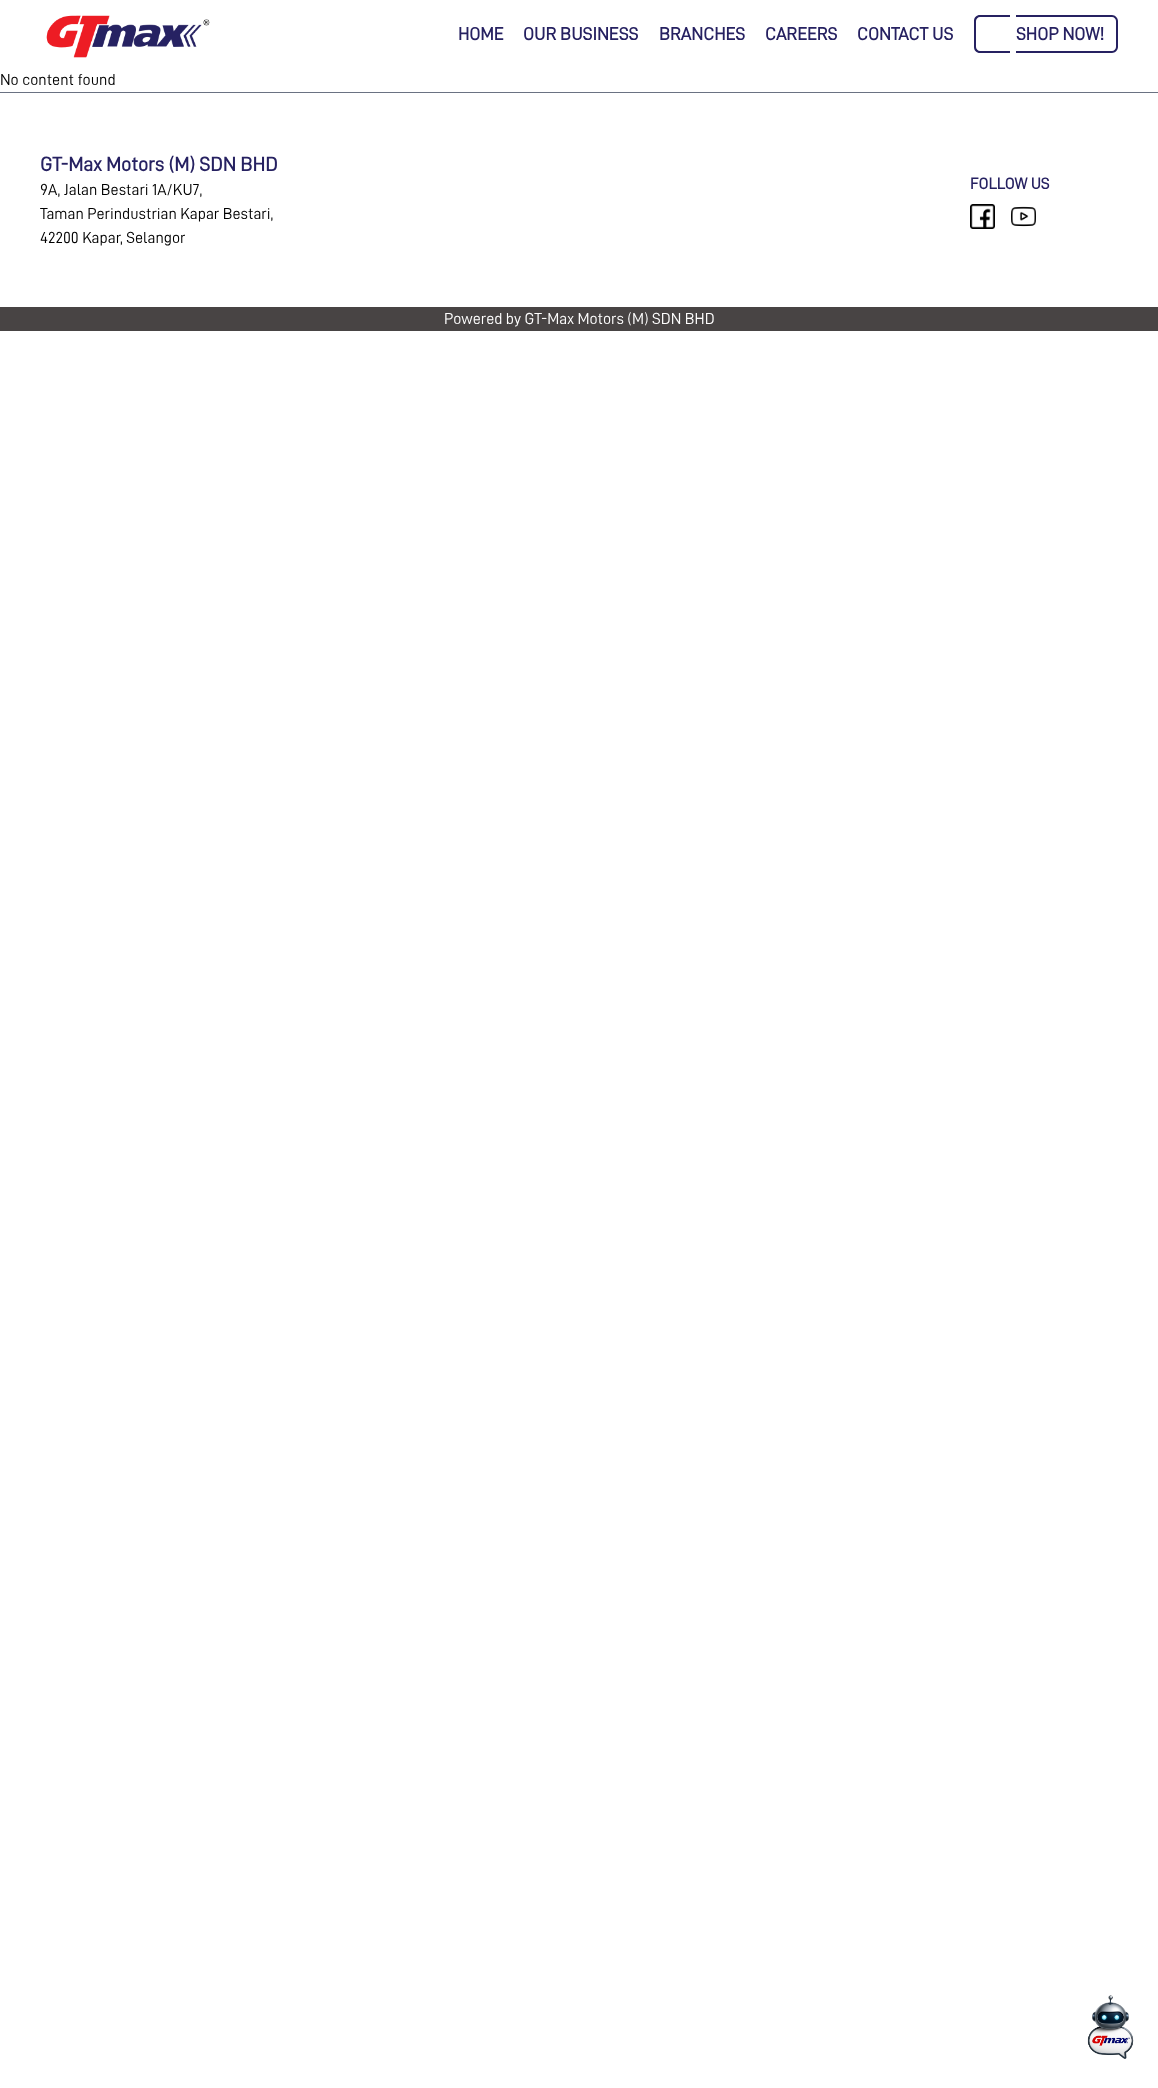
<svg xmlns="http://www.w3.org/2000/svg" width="1158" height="2088">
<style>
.a{font:bold 18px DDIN;fill:#262161}
.b{font:16px DDIN;fill:#000}
.c{font:bold 20px DDIN;fill:#262161}
.d{font:bold 16px DDIN;fill:#262161}
.e{font:16px DDIN;fill:#fff}
</style>
<rect width="100%" height="100%" fill="#fff"/>
<image href="1.png" x="46" y="15" width="164" height="43"/>
<path fill="#262161" fill-rule="evenodd" d="M980 15h30v38h-30c-3.5 0-6-2.5-6-6v-26c0-3.5 2.5-6 6-6zm0 2h30v34h-30c-2 0-4-2-4-4v-26c0-2 2-4 4-4z"/>
<path fill="#262161" fill-rule="evenodd" d="M1016 15h96c3 0 6 3 6 6v26c0 3-3 6-6 6h-96zm0 2h96c2 0 4 2 4 4v26c0 2-2 4-4 4h-96z"/>
<path fill="#6a7282" d="M0 92h1158v1H0z"/>
<image href="2.png" x="970" y="204" width="25" height="25"/>
<image href="3.png" x="1011" y="206" width="25" height="21"/>
<path fill="#484444" d="M0 307h1158v24H0z"/>
<image href="4.png" x="1087" y="1995" width="47" height="64"/>
<text class="a" x="458" y="40">HOME</text>
<text class="a" x="523" y="40">OUR BUSINESS</text>
<text class="a" x="659" y="40">BRANCHES</text>
<text class="a" x="765" y="40">CAREERS</text>
<text class="a" x="857" y="40">CONTACT US</text>
<text class="a" x="1016" y="40">SHOP NOW!</text>
<text class="b" x="0" y="85">No content found</text>
<text class="c" x="40" y="171">GT-Max Motors (M) SDN BHD</text>
<text class="b" x="40" y="195">9A, Jalan Bestari 1A/KU7,</text>
<text class="b" x="40" y="219">Taman Perindustrian Kapar Bestari,</text>
<text class="b" x="40" y="243">42200 Kapar, Selangor</text>
<text class="d" x="970" y="189">FOLLOW US</text>
<text class="e" x="444" y="324">Powered by GT-Max Motors (M) SDN BHD</text>
</svg>
